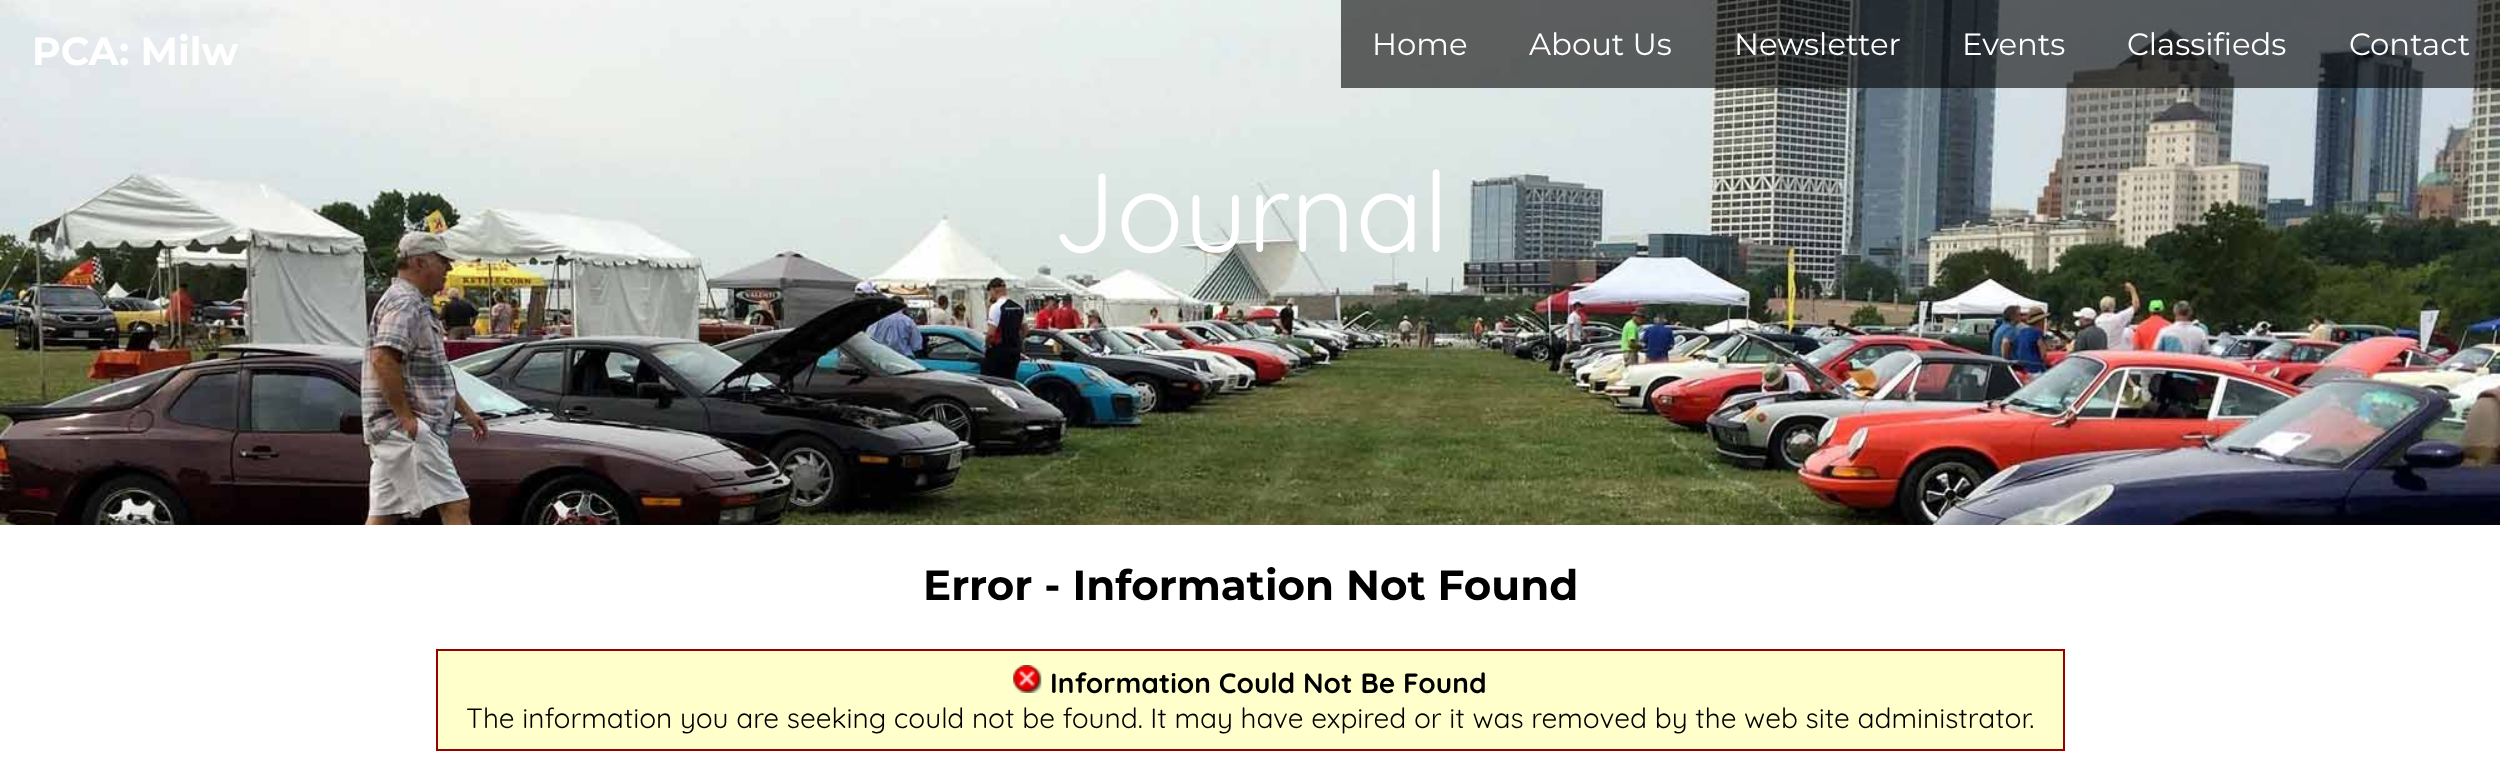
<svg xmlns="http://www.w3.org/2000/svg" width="2500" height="765">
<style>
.a{font:bold 39.25px Montserrat;fill:#fff}
.b{font:30.75px Montserrat;fill:#fff}
.c{font:112px Quicksand;fill:#fff}
.d{font:bold 42px Montserrat;fill:#000}
.e{font:bold 28px Quicksand;fill:#000}
.f{font:28px Quicksand;fill:#000}
</style>
<rect width="100%" height="100%" fill="#fff"/>
<image href="1.png" x="0" y="0" width="2500" height="525"/>
<path fill="#00000099" d="M1341 0h1159v88H1341z"/>
<path fill="#ffc" stroke="#900" stroke-width="2" d="M437 650h1627v100H437z"/>
<image href="2.png" x="1013" y="665" width="29" height="28"/>
<text class="a" x="32" y="65">PCA: Milw</text>
<text class="b" x="1372" y="55">Home</text>
<text class="b" x="1529" y="55">About Us</text>
<text class="b" x="1734" y="55">Newsletter</text>
<text class="b" x="1962" y="55">Events</text>
<text class="b" x="2127" y="55">Classifieds</text>
<text class="b" x="2349" y="55">Contact</text>
<text class="c" x="1052" y="252">Journal</text>
<text class="d" x="923" y="600">Error - Information Not Found</text>
<text class="e" x="1050" y="693">Information Could Not Be Found</text>
<text class="f" x="466" y="728">The information you are seeking could not be found. It may have expired or it was removed by the web site administrator.</text>
</svg>
